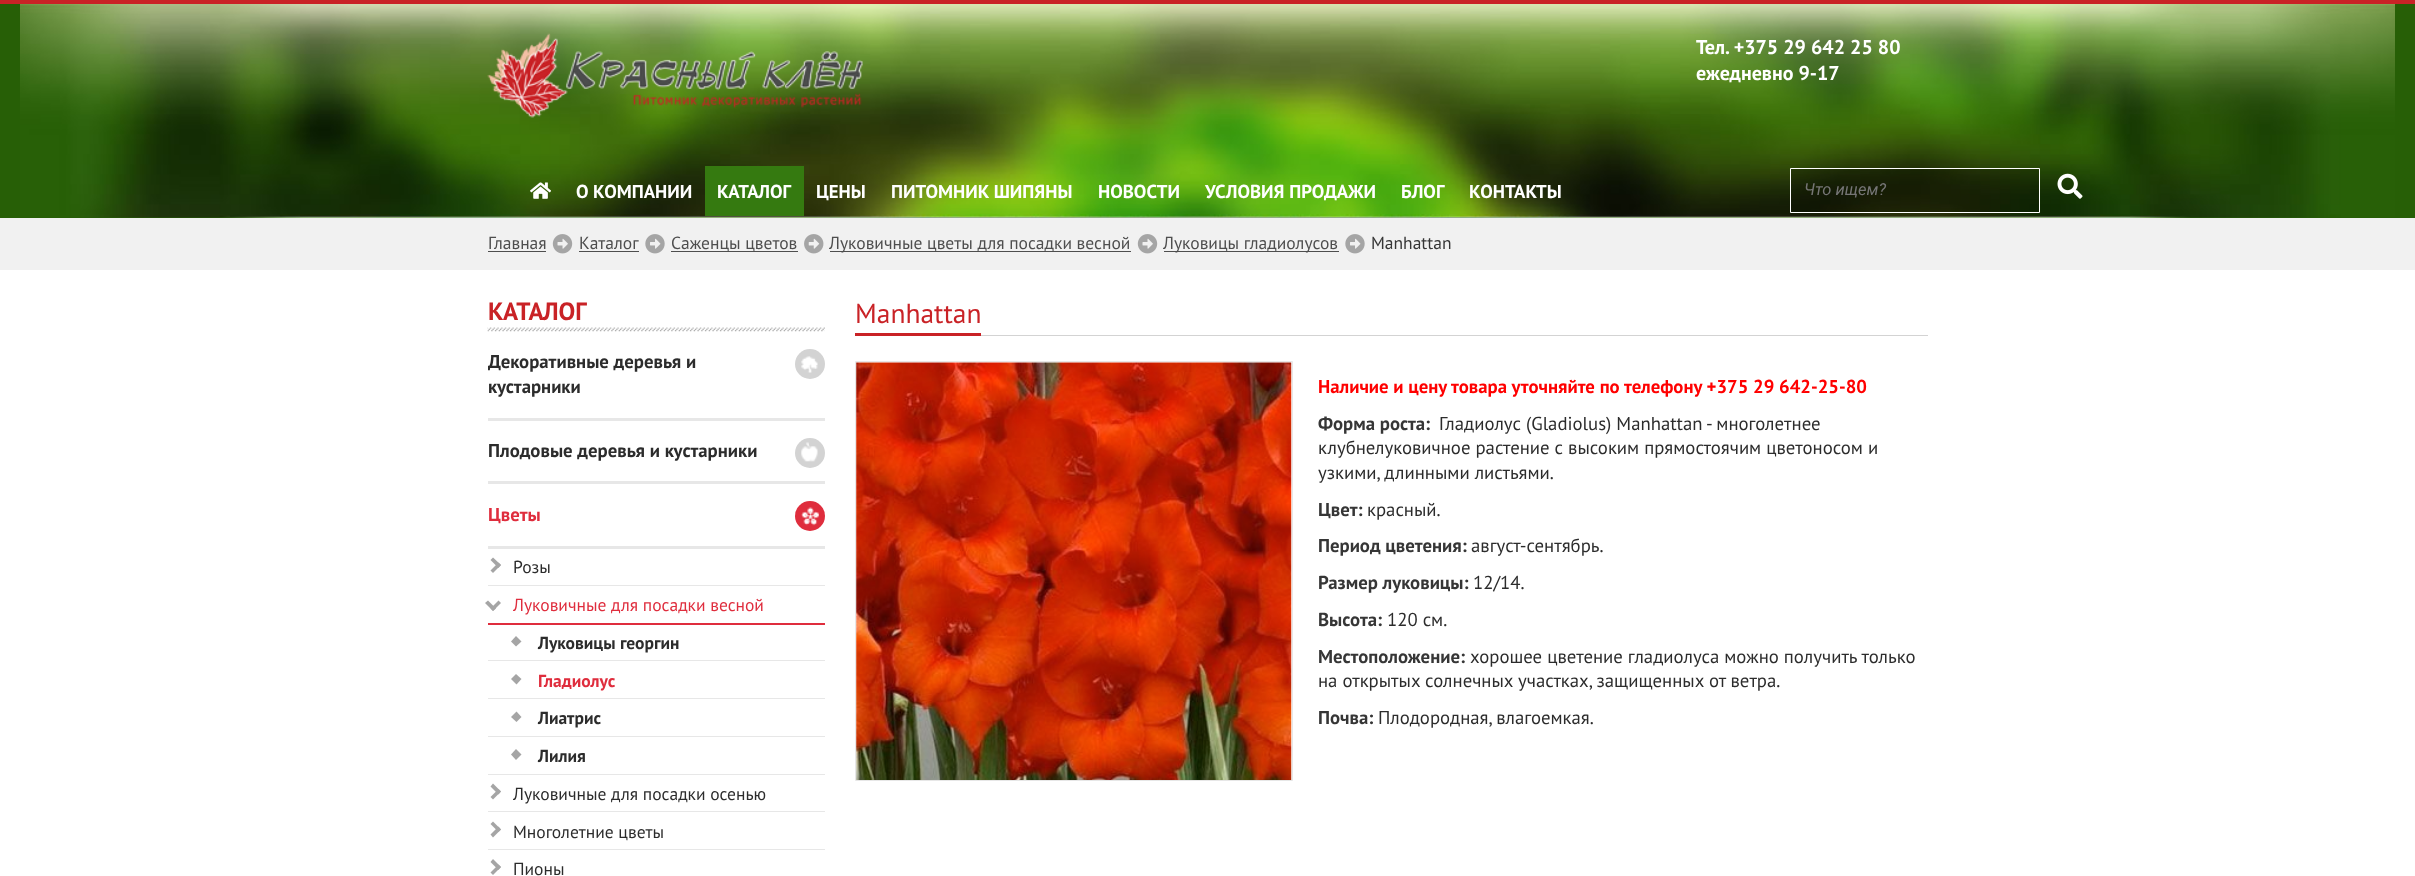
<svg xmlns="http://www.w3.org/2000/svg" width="2415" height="876">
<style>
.a{font:bold 20px PT Sans;fill:#fff}
.b{font:bold 18.75px PT Sans;fill:#fff}
.c{font:italic 16.5px Roboto;fill:#757575}
.d{font:17.5px PT Sans;fill:#4e4e4e}
.e{font:17.5px PT Sans;fill:#363636}
.f{font:bold 25px PT Sans;fill:#c92226}
.g{font:bold 18.75px PT Sans;fill:#2c2c2c}
.h{font:bold 18.75px PT Sans;fill:#df2d3d}
.i{font:17.5px PT Sans;fill:#2c2c2c}
.j{font:17.5px PT Sans;fill:#df2d3d}
.k{font:bold 17.5px PT Sans;fill:#2c2c2c}
.l{font:bold 17.5px PT Sans;fill:#df2d3d}
.m{font:27.5px PT Sans;fill:#c92226}
.n{font:bold 18.75px PT Sans;fill:#f00}
.o{font:bold 18.75px PT Sans;fill:#363636}
.p{font:18.75px PT Sans;fill:#2c2c2c}
</style>
<rect width="100%" height="100%" fill="#fff"/>
<path fill="#275f06" d="M0 4h2415v214H0z"/>
<image href="1.png" x="20" y="4" width="2375" height="214"/>
<path fill="#c92226" d="M0 0h2415v4H0z"/>
<image href="2.png" x="487" y="33" width="376" height="85"/>
<image href="3.png" x="530" y="182" width="21" height="17"/>
<path fill="#357a10" d="M705 166h99v50H705z"/>
<path fill="#00000033" stroke="#fff" d="M1790.5 168.5h249v44H1790.5z"/>
<image href="4.png" x="2057" y="173" width="26" height="26"/>
<path fill="#f1f1f1" d="M0 218h2415v52H0z"/>
<path fill="#4e4e4e" d="M488 251h58v1H488z"/>
<image href="5.png" x="552" y="234" width="21" height="20"/>
<path fill="#4e4e4e" d="M579 251h60v1H579z"/>
<image href="6.png" x="645" y="234" width="20" height="20"/>
<path fill="#4e4e4e" d="M671 251h127v1H671z"/>
<image href="7.png" x="804" y="234" width="20" height="20"/>
<path fill="#4e4e4e" d="M830 251h301v1H830z"/>
<image href="5.png" x="1137" y="234" width="21" height="20"/>
<path fill="#4e4e4e" d="M1164 251h175v1H1164z"/>
<image href="6.png" x="1345" y="234" width="20" height="20"/>
<image href="8.png" x="487" y="327" width="338" height="5"/>
<path fill="#e7e7e7" d="M488 418h337v3H488z"/>
<circle fill="#d3d3d3" cx="810" cy="364" r="15"/>
<image href="9.png" x="801" y="356" width="17" height="17"/>
<path fill="#e7e7e7" d="M488 481h337v3H488z"/>
<circle fill="#d3d3d3" cx="810" cy="453" r="15"/>
<image href="10.png" x="801" y="442" width="17" height="20"/>
<path fill="#e7e7e7" d="M488 546h337v3H488z"/>
<circle fill="#df2d3d" cx="810" cy="516" r="15"/>
<image href="11.png" x="801" y="507" width="18" height="19"/>
<path fill="#e7e7e7" d="M488 585h337v1H488z"/>
<path fill="#a5a5a5" d="M490.5 560l2.5-2.5l8 7.5l-2.5 3z"/>
<path fill="#a5a5a5" d="M490.5 570.5l8-8l2.5 2.5l-8 8z"/>
<path fill="#df2d3d" d="M488 623h337v2H488z"/>
<path fill="#a5a5a5" d="M498.5 600.5l2.5 2.5l-8 8l-2.5-2.5z"/>
<path fill="#a5a5a5" d="M488 600.5l8 8l-3 2.5l-8-8z"/>
<path fill="#e7e7e7" d="M488 660h337v1H488z"/>
<path fill="#a5a5a5" d="M511 641.5l5-5.5l5.5 5.5l-5.5 5z"/>
<path fill="#e7e7e7" d="M488 698h337v1H488z"/>
<path fill="#a5a5a5" d="M511 679l5-5l5.5 5l-5 5.5z"/>
<path fill="#e7e7e7" d="M488 736h337v1H488z"/>
<path fill="#a5a5a5" d="M511 717l5.5-5.5l5 5.5l-5 5z"/>
<path fill="#e7e7e7" d="M488 774h337v1H488z"/>
<path fill="#a5a5a5" d="M511 754.5l5-5.5l5.5 5.5l-5.5 5.5z"/>
<path fill="#e7e7e7" d="M488 811h337v1H488z"/>
<path fill="#a5a5a5" d="M490.5 786.5l2.5-3l8 8l-2.5 3z"/>
<path fill="#a5a5a5" d="M490.5 797l8-8l2.5 2.5l-8 8z"/>
<path fill="#e7e7e7" d="M488 849h337v1H488z"/>
<path fill="#a5a5a5" d="M490.5 824l2.5-2.5l8 8l-2.5 2.5z"/>
<path fill="#a5a5a5" d="M490.5 834.5l8-8l2.5 3l-8 8z"/>
<path fill="#a5a5a5" d="M490.5 862l2.5-3l8 8l-2.5 3z"/>
<path fill="#a5a5a5" d="M490.5 872.5l8-8l2.5 2.5l-8 8z"/>
<path fill="#d3d3d3" d="M981 335h947v1H981z"/>
<path fill="#c92226" d="M855 333h126v3H855z"/>
<path fill="none" stroke="#e7e7e7" d="M855.5 361.5h437v419H855.5z"/>
<image href="12.png" x="856" y="362" width="436" height="418"/>
<text class="a" x="1696" y="54">Тел. +375 29 642 25 80</text>
<text class="a" x="1696" y="80">ежедневно 9-17</text>
<text class="b" x="576" y="198">О КОМПАНИИ</text>
<text class="b" x="717" y="198">КАТАЛОГ</text>
<text class="b" x="816" y="198">ЦЕНЫ</text>
<text class="b" x="891" y="198">ПИТОМНИК ШИПЯНЫ</text>
<text class="b" x="1098" y="198">НОВОСТИ</text>
<text class="b" x="1205" y="198">УСЛОВИЯ ПРОДАЖИ</text>
<text class="b" x="1401" y="198">БЛОГ</text>
<text class="b" x="1469" y="198">КОНТАКТЫ</text>
<text class="c" x="1804" y="195">Что ищем?</text>
<text class="d" x="488" y="249">Главная</text>
<text class="d" x="579" y="249">Каталог</text>
<text class="d" x="671" y="249">Саженцы цветов</text>
<text class="d" x="829" y="249">Луковичные цветы для посадки весной</text>
<text class="d" x="1163" y="249">Луковицы гладиолусов</text>
<text class="e" x="1371" y="249">Manhattan</text>
<text class="f" x="488" y="320">КАТАЛОГ</text>
<text class="g" x="488" y="368">Декоративные деревья и</text>
<text class="g" x="488" y="393">кустарники</text>
<text class="g" x="488" y="457">Плодовые деревья и кустарники</text>
<text class="h" x="488" y="521">Цветы</text>
<text class="i" x="513" y="573">Розы</text>
<text class="j" x="513" y="611">Луковичные для посадки весной</text>
<text class="k" x="538" y="649">Луковицы георгин</text>
<text class="l" x="538" y="687">Гладиолус</text>
<text class="k" x="538" y="724">Лиатрис</text>
<text class="k" x="538" y="762">Лилия</text>
<text class="i" x="513" y="800">Луковичные для посадки осенью</text>
<text class="i" x="513" y="838">Многолетние цветы</text>
<text class="i" x="513" y="875">Пионы</text>
<text class="m" x="855" y="323">Manhattan</text>
<text class="n" x="1318" y="393">Наличие и цену товара уточняйте по телефону +375 29 642-25-80</text>
<text class="o" x="1318" y="430">Форма роста:</text>
<text class="p" x="1439" y="430">Гладиолус (Gladiolus) Manhattan - многолетнее</text>
<text class="p" x="1318" y="454">клубнелуковичное растение с высоким прямостоячим цветоносом и</text>
<text class="p" x="1318" y="479">узкими, длинными листьями.</text>
<text class="o" x="1318" y="516">Цвет:</text>
<text class="p" x="1367" y="516">красный.</text>
<text class="o" x="1318" y="552">Период цветения:</text>
<text class="p" x="1471" y="552">август-сентябрь.</text>
<text class="o" x="1318" y="589">Размер луковицы:</text>
<text class="p" x="1473" y="589">12/14.</text>
<text class="o" x="1318" y="626">Высота:</text>
<text class="p" x="1387" y="626">120 см.</text>
<text class="o" x="1318" y="663">Местоположение:</text>
<text class="p" x="1470" y="663">хорошее цветение гладиолуса можно получить только</text>
<text class="p" x="1318" y="687">на открытых солнечных участках, защищенных от ветра.</text>
<text class="o" x="1318" y="724">Почва:</text>
<text class="p" x="1378" y="724">Плодородная, влагоемкая.</text>
</svg>
